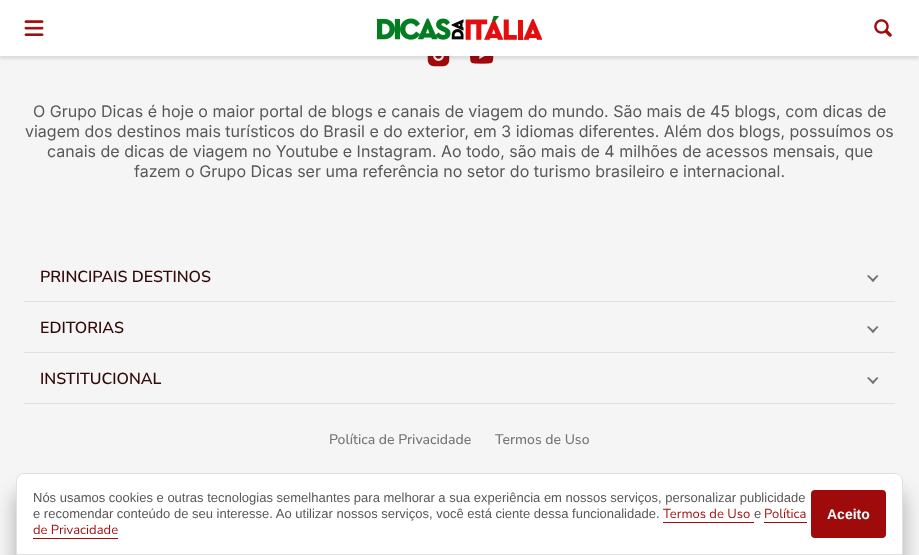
<svg xmlns="http://www.w3.org/2000/svg" width="919" height="555">
<style>
.a{font:16px Inter;fill:#585858}
.b{font:600 16px Nunito Sans;fill:#330a0a}
.c{font:500 14px Nunito Sans;fill:#757575}
.d{font:13px Liberation Sans;fill:#585858}
.e{font:13px Nunito Sans;fill:#9f0b0b}
.f{font:bold 14px Liberation Sans;fill:#fff}
</style>
<rect width="100%" height="100%" fill="#f5f5f5"/>
<image href="4.png" x="427" y="56" width="23" height="11"/>
<image href="5.png" x="470" y="56" width="24" height="8"/>
<path fill="#0000001a" filter="blur(1.5px)" d="M0 3h919v56H0z"/>
<path fill="#fff" d="M0 0h919v56H0z"/>
<image href="1.png" x="24" y="20" width="20" height="16"/>
<image href="2.png" x="377" y="16" width="165" height="24"/>
<image href="3.png" x="874" y="19" width="18" height="18"/>
<path fill="#e0e0e0" d="M24 301h871v1H24z"/>
<path fill="#757575" d="M871.5 280.5l5.5-5.5l1.5 1l-5.5 6z"/>
<path fill="#757575" d="M868.5 275l6 5.5l-1.5 1.5l-6-6z"/>
<path fill="#e0e0e0" d="M24 352h871v1H24z"/>
<path fill="#757575" d="M871.5 331.5l5.5-5.5l1.5 1l-5.5 6z"/>
<path fill="#757575" d="M868.5 326l6 5.5l-1.5 1.5l-6-6z"/>
<path fill="#e0e0e0" d="M24 403h871v1H24z"/>
<path fill="#757575" d="M871.5 382.5l5.5-5.5l1.5 1l-5.5 6z"/>
<path fill="#757575" d="M868.5 377l6 5.5l-1.5 1.5l-6-6z"/>
<rect fill="#0000004d" filter="blur(10px)" x="16" y="493" width="887" height="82" rx="8"/>
<path fill="#fff" stroke="#e0e0e0" d="M24 473.5h871c4 0 7.5 3.5 7.5 7.5v73.5h-886v-73.5c0-4 3.5-7.5 7.5-7.5z"/>
<path fill="#9f0b0b" d="M663 522h91v1H663z"/>
<path fill="#9f0b0b" d="M764 522h43v1H764z"/>
<path fill="#9f0b0b" d="M33 538h85v1H33z"/>
<rect fill="#9f0b0b" x="811" y="490" width="75" height="48" rx="4"/>
<text class="a" x="33" y="117">O Grupo Dicas é hoje o maior portal de blogs e canais de viagem do mundo. São mais de 45 blogs, com dicas de</text>
<text class="a" x="25" y="137">viagem dos destinos mais turísticos do Brasil e do exterior, em 3 idiomas diferentes. Além dos blogs, possuímos os</text>
<text class="a" x="47" y="157">canais de dicas de viagem no Youtube e Instagram. Ao todo, são mais de 4 milhões de acessos mensais, que</text>
<text class="a" x="134" y="177">fazem o Grupo Dicas ser uma referência no setor do turismo brasileiro e internacional.</text>
<text class="b" x="40" y="282">PRINCIPAIS DESTINOS</text>
<text class="b" x="40" y="333">EDITORIAS</text>
<text class="b" x="40" y="384">INSTITUCIONAL</text>
<text class="c" x="329" y="444">Política de Privacidade</text>
<text class="c" x="495" y="444">Termos de Uso</text>
<text class="d" x="33" y="502">Nós usamos cookies e outras tecnologias semelhantes para melhorar a sua experiência em nossos serviços, personalizar publicidade</text>
<text class="d" x="33" y="518">e recomendar conteúdo de seu interesse. Ao utilizar nossos serviços, você está ciente dessa funcionalidade.</text>
<text class="e" x="663" y="518">Termos de Uso</text>
<text class="d" x="754" y="518">e</text>
<text class="e" x="764" y="518">Política</text>
<text class="e" x="33" y="534">de Privacidade</text>
<text class="f" x="827" y="519">Aceito</text>
</svg>
